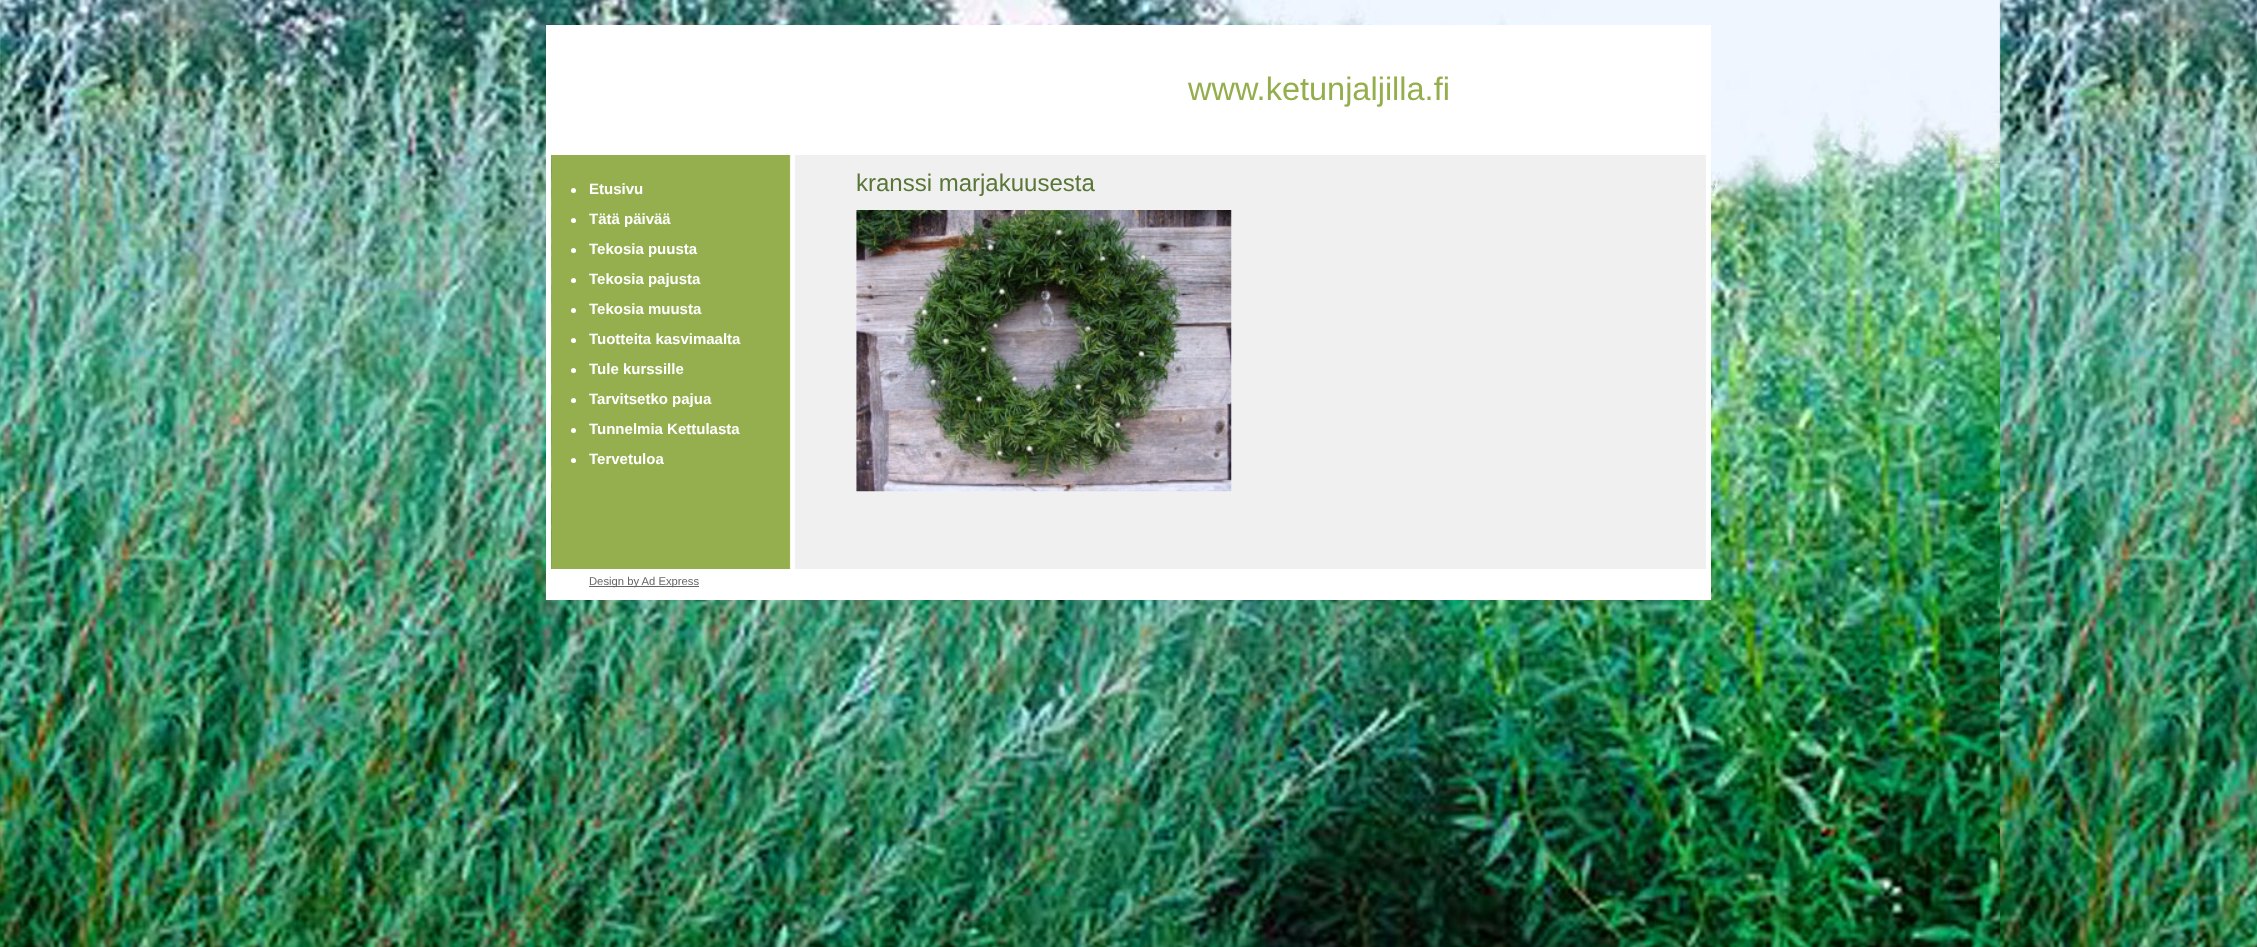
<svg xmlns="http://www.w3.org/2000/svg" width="2257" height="947">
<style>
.a{font:32.5px Liberation Sans;fill:#94ae4d}
.b{font:bold 15px Liberation Sans;fill:#fff}
.c{font:24px Liberation Sans;fill:#587636}
.d{font:11.25px Liberation Sans;fill:#666}
</style>
<rect width="100%" height="100%" fill="#fff"/>
<image href="1.png" x="0" y="0" width="2257" height="947"/>
<image href="2.png" x="551" y="155" width="1155" height="414"/>
<path fill="none" stroke="#fff" stroke-width="5" d="M548.5 27.5h1160v570H548.5z"/>
<path fill="#fff" d="M551 30h1155v125H551z"/>
<circle fill="#fff" cx="573.5" cy="190.5" r="2.5"/>
<circle fill="#fff" cx="573.5" cy="220.5" r="2.5"/>
<circle fill="#fff" cx="573.5" cy="250.5" r="2.5"/>
<circle fill="#fff" cx="573.5" cy="280.5" r="2.5"/>
<circle fill="#fff" cx="573.5" cy="310.5" r="2.5"/>
<circle fill="#fff" cx="573.5" cy="340.5" r="2.5"/>
<circle fill="#fff" cx="573.5" cy="370.5" r="2.5"/>
<circle fill="#fff" cx="573.5" cy="400.5" r="2.5"/>
<circle fill="#fff" cx="573.5" cy="430.5" r="2.5"/>
<circle fill="#fff" cx="573.5" cy="460.5" r="2.5"/>
<image href="3.png" x="856" y="210" width="376" height="282"/>
<path fill="#fff" d="M551 569h1155v26H551z"/>
<path fill="#666" d="M589 586h110v1H589z"/>
<text class="a" x="1188" y="100">www.ketunjaljilla.fi</text>
<text class="b" x="589" y="194">Etusivu</text>
<text class="b" x="589" y="224">Tätä päivää</text>
<text class="b" x="589" y="254">Tekosia puusta</text>
<text class="b" x="589" y="284">Tekosia pajusta</text>
<text class="b" x="589" y="314">Tekosia muusta</text>
<text class="b" x="589" y="344">Tuotteita kasvimaalta</text>
<text class="b" x="589" y="374">Tule kurssille</text>
<text class="b" x="589" y="404">Tarvitsetko pajua</text>
<text class="b" x="589" y="434">Tunnelmia Kettulasta</text>
<text class="b" x="589" y="464">Tervetuloa</text>
<text class="c" x="856" y="191">kranssi marjakuusesta</text>
<text class="d" x="589" y="585">Design by Ad Express</text>
</svg>
